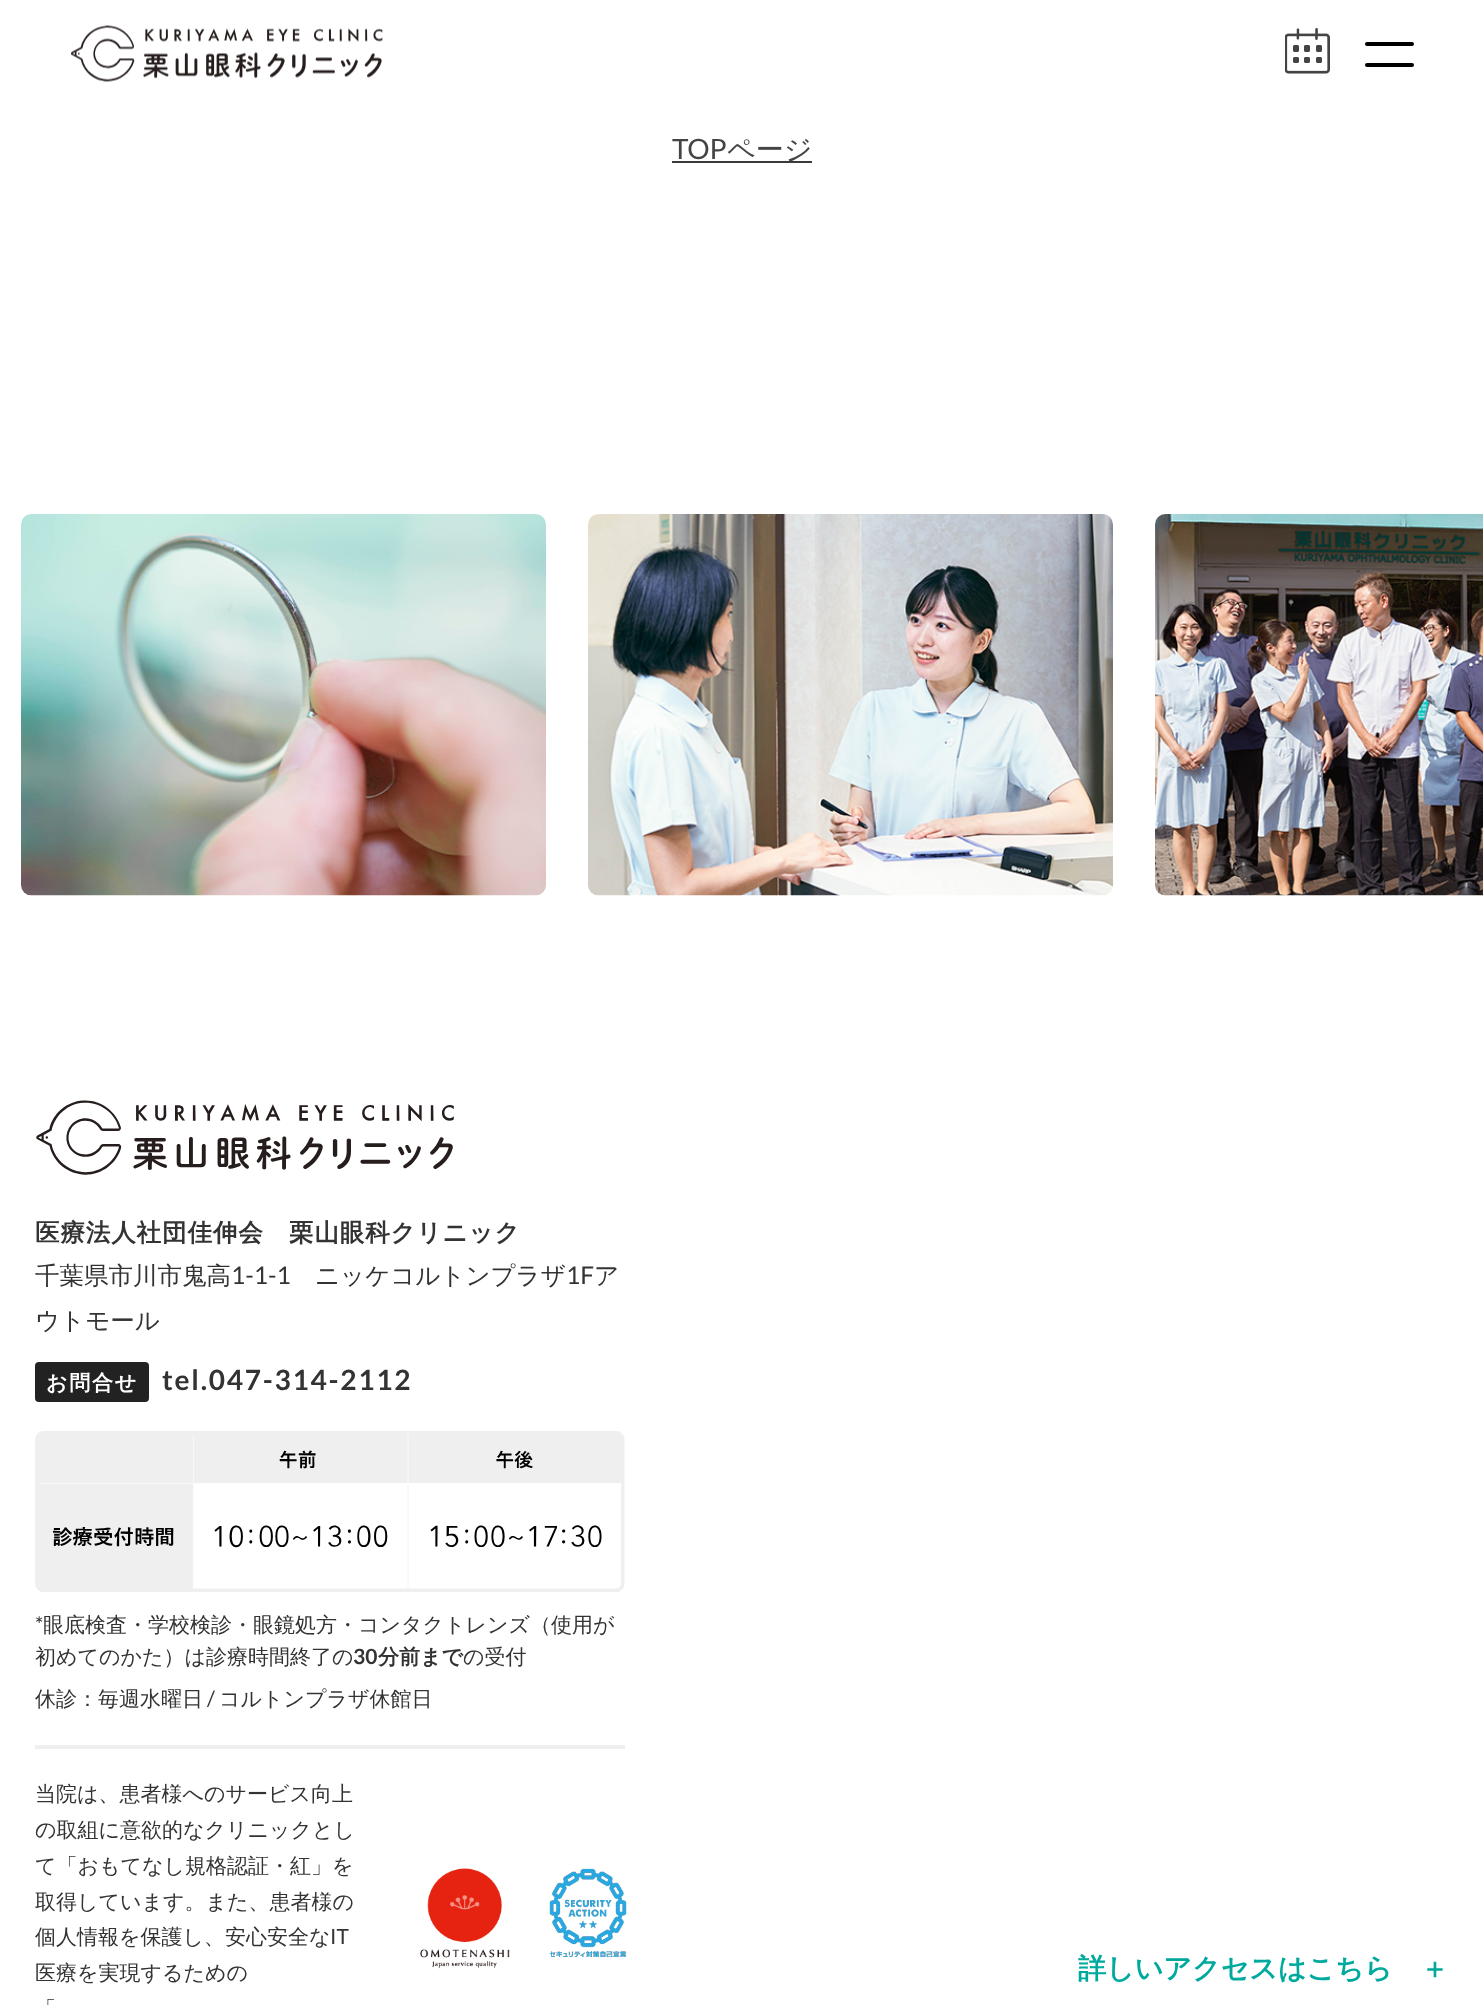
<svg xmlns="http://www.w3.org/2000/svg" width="1483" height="2005">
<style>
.a{font:28px Lato;fill:#444}
.b{font:500 28px WenQuanYi Zen Hei;fill:#444}
.c{font:bold 24.5px WenQuanYi Zen Hei;letter-spacing:0.9px;fill:#333}
.d{font:500 24.5px WenQuanYi Zen Hei;fill:#333}
.e{font:24.5px Lato;fill:#333}
.f{font:bold 21px WenQuanYi Zen Hei;letter-spacing:1.75px;fill:#fff}
.g{font:bold 28px Lato;letter-spacing:1.75px;fill:#333}
.h{font:21px Lato;fill:#333}
.i{font:500 21px WenQuanYi Zen Hei;fill:#333}
.j{font:bold 21px Lato;fill:#333}
.k{font:bold 21px WenQuanYi Zen Hei;fill:#333}
.l{font:bold 28px WenQuanYi Zen Hei;fill:#00a99d}
</style>
<rect width="100%" height="100%" fill="#fff"/>
<image href="1.png" x="71" y="25" width="312" height="57"/>
<image href="2.png" x="1285" y="28" width="45" height="46"/>
<rect fill="#000" x="1365" y="42" width="49" height="4" rx="2"/>
<rect fill="#000" x="1365" y="63" width="49" height="4" rx="2"/>
<path fill="#3a3a3a" d="M672 161h140v2H672z"/>
<image href="3.png" x="21" y="514" width="525" height="382"/>
<image href="4.png" x="588" y="514" width="525" height="382"/>
<image href="5.png" x="1155" y="514" width="328" height="382"/>
<image href="6.png" x="36" y="1100" width="418" height="75"/>
<rect fill="#222" x="35" y="1362" width="114" height="40" rx="4"/>
<image href="7.png" x="35" y="1431" width="590" height="161"/>
<path fill="#efefef" d="M35 1745h590v4H35z"/>
<image href="8.png" x="420" y="1868" width="90" height="101"/>
<image href="9.png" x="549" y="1868" width="78" height="90"/>
<text class="a" x="672" y="159">TOP</text>
<text class="b" x="727" y="159">ページ</text>
<text class="c" x="35" y="1241">医療法人社団佳伸会　栗山眼科クリニック</text>
<text class="d" x="35" y="1284">千葉県市川市鬼高</text>
<text class="e" x="231" y="1284">1-1-1</text>
<text class="d" x="315" y="1284">ニッケコルトンプラザ</text>
<text class="e" x="566" y="1284">1F</text>
<text class="d" x="594" y="1284">ア</text>
<text class="d" x="35" y="1329">ウトモール</text>
<text class="f" x="46" y="1390">お問合せ</text>
<text class="g" x="162" y="1390">tel.047-314-2112</text>
<text class="h" x="35" y="1632">*</text>
<text class="i" x="43" y="1632">眼底検査・学校検診・眼鏡処方・コンタクトレンズ（使用が</text>
<text class="i" x="35" y="1664">初めてのかた）は診療時間終了の</text>
<text class="j" x="353" y="1664">30</text>
<text class="k" x="378" y="1664">分前まで</text>
<text class="i" x="463" y="1664">の受付</text>
<text class="i" x="35" y="1706">休診：毎週水曜日</text>
<text class="h" x="207" y="1706">/</text>
<text class="i" x="219" y="1706">コルトンプラザ休館日</text>
<text class="i" x="35" y="1801">当院は、患者様へのサービス向上</text>
<text class="i" x="35" y="1837">の取組に意欲的なクリニックとし</text>
<text class="i" x="35" y="1873">て「おもてなし規格認証・紅」を</text>
<text class="i" x="35" y="1909">取得しています。また、患者様の</text>
<text class="i" x="35" y="1944">個人情報を保護し、安心安全な</text>
<text class="h" x="330" y="1944">IT</text>
<text class="i" x="35" y="1980">医療を実現するための</text>
<text class="i" x="35" y="2016">「</text>
<text class="l" x="1078" y="1978">詳しいアクセスはこちら　＋</text>
</svg>
